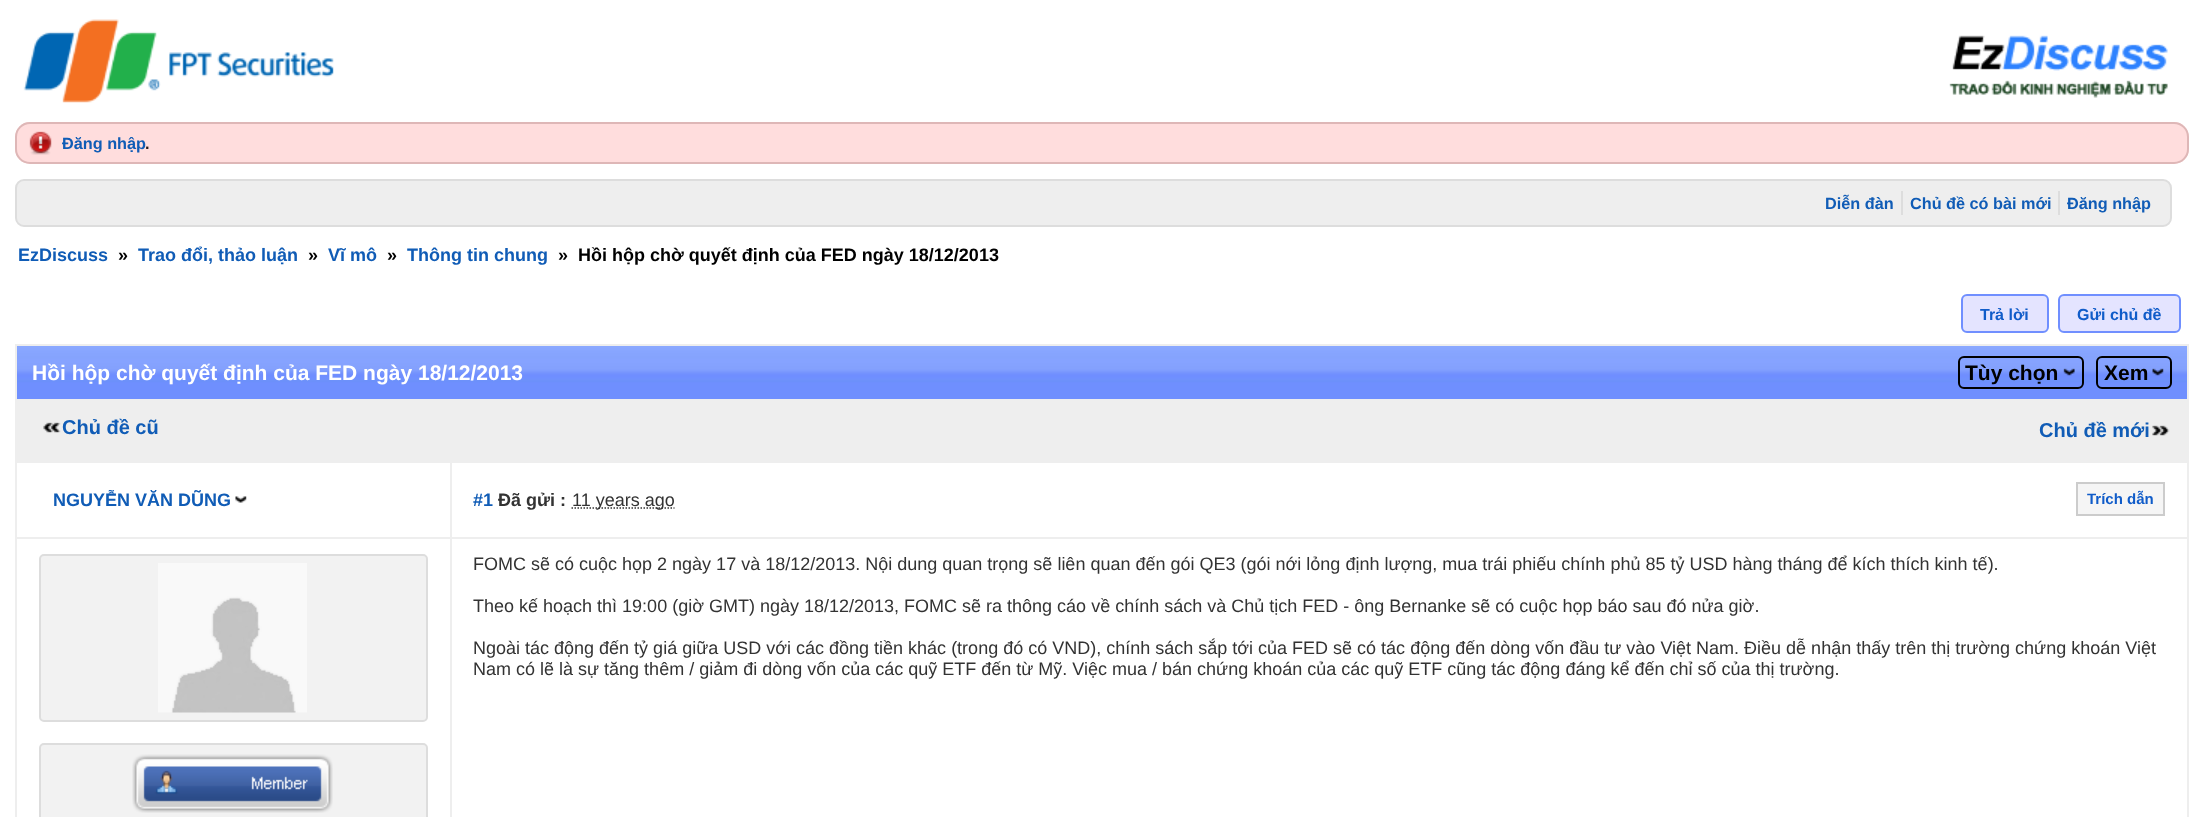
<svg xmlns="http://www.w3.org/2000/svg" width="2203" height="817">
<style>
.a{font:bold 16.25px Liberation Sans;fill:#105cb6}
.b{font:bold 16.25px Liberation Sans;fill:#281b1b}
.c{font:bold 18px Liberation Sans;fill:#105cb6}
.d{font:bold 18px Liberation Sans;fill:#000}
.e{font:bold 16px Liberation Sans;fill:#105cc9}
.f{font:bold 21px Liberation Sans;fill:#fff}
.g{font:bold 21px Liberation Sans;fill:#000}
.h{font:bold 20px Liberation Sans;fill:#105cb6}
.i{font:bold 18px Liberation Sans;fill:#333}
.j{font:18px Liberation Sans;fill:#333}
.k{font:bold 15px Liberation Sans;fill:#105cc9}
</style>
<rect width="100%" height="100%" fill="#fff"/>
<image href="1.png" x="23" y="19" width="311" height="84"/>
<image href="2.png" x="1949" y="35" width="219" height="63"/>
<rect fill="#fdd" x="15" y="122" width="2174" height="42" rx="15"/>
<image href="3.png" x="29" y="131" width="23" height="24"/>
<rect fill="none" stroke="#deb7b7" stroke-width="2" x="16" y="123" width="2172" height="40" rx="14"/>
<rect fill="#eee" stroke="#ddd" stroke-width="2" x="16" y="180" width="2155" height="46" rx="8"/>
<path fill="#ddd" d="M1901 191h2v24H1901z"/>
<path fill="#ddd" d="M2058 191h2v24H2058z"/>
<rect fill="#e4e4ff" stroke="#708fff" stroke-width="2" x="1962" y="295" width="86" height="37" rx="5"/>
<rect fill="#e4e4ff" stroke="#708fff" stroke-width="2" x="2059" y="295" width="121" height="37" rx="5"/>
<image href="4.png" x="17" y="346" width="2170" height="53"/>
<path fill="#eee" d="M15 344h2174v2H15z"/>
<path fill="#eee" d="M15 399h2174v2H15z"/>
<path fill="#eee" d="M2187 344h2v57H2187z"/>
<path fill="#eee" d="M15 459h2174v2H15z"/>
<path fill="#eee" d="M15 399h2v62H15z"/>
<path fill="#eee" d="M15 344h2v57H15z"/>
<image href="5.png" x="2063" y="368" width="12" height="8"/>
<rect fill="none" stroke="#000" stroke-width="2" x="1959" y="357" width="124" height="31" rx="5"/>
<image href="6.png" x="2152" y="368" width="12" height="8"/>
<rect fill="none" stroke="#000" stroke-width="2" x="2097" y="357" width="74" height="31" rx="5"/>
<path fill="#eee" d="M17 401h2172v58H17z"/>
<image href="7.png" x="43" y="422" width="18" height="11"/>
<image href="8.png" x="2152" y="425" width="18" height="11"/>
<path fill="#eee" d="M450 461h1739v2H450z"/>
<path fill="#eee" d="M450 537h1739v2H450z"/>
<path fill="#eee" d="M450 537h2v280H450z"/>
<path fill="#eee" d="M15 537h437v2H15z"/>
<path fill="#eee" d="M450 461h2v78H450z"/>
<path fill="#eee" d="M15 461h437v2H15z"/>
<path fill="#eee" d="M15 537h2v280H15z"/>
<path fill="#eee" d="M15 461h2v78H15z"/>
<image href="9.png" x="235" y="496" width="12" height="7"/>
<path fill="#eee" d="M2187 537h2v280H2187z"/>
<path fill="#eee" d="M2187 461h2v78H2187z"/>
<path fill="none" stroke="#333" stroke-width="1.5" stroke-dasharray="1.5 1.5" d="M571.5 508h103"/>
<path fill="#f5f5f5" stroke="#ccc" stroke-width="2" d="M2077 483h87v32H2077z"/>
<rect fill="#f2f2f2" stroke="#ddd" stroke-width="2" x="40" y="555" width="387" height="166" rx="4"/>
<image href="10.png" x="158" y="563" width="149" height="150"/>
<rect fill="#f2f2f2" stroke="#ddd" stroke-width="2" x="40" y="744" width="387" height="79" rx="4"/>
<image href="11.png" x="132" y="754" width="201" height="59"/>
<text class="a" x="62" y="149">Đăng nhập</text>
<text class="b" x="145" y="149">.</text>
<text class="a" x="1825" y="209">Diễn đàn</text>
<text class="a" x="1910" y="209">Chủ đề có bài mới</text>
<text class="a" x="2067" y="209">Đăng nhập</text>
<text class="c" x="18" y="261">EzDiscuss</text>
<text class="d" x="118" y="261">»</text>
<text class="c" x="138" y="261">Trao đổi, thảo luận</text>
<text class="d" x="308" y="261">»</text>
<text class="c" x="328" y="261">Vĩ mô</text>
<text class="d" x="387" y="261">»</text>
<text class="c" x="407" y="261">Thông tin chung</text>
<text class="d" x="558" y="261">»</text>
<text class="d" x="578" y="261">Hồi hộp chờ quyết định của FED ngày 18/12/2013</text>
<text class="e" x="1980" y="320">Trả lời</text>
<text class="e" x="2077" y="320">Gửi chủ đề</text>
<text class="f" x="32" y="380">Hồi hộp chờ quyết định của FED ngày 18/12/2013</text>
<text class="g" x="1965" y="380">Tùy chọn</text>
<text class="g" x="2104" y="380">Xem</text>
<text class="h" x="62" y="434">Chủ đề cũ</text>
<text class="h" x="2039" y="437">Chủ đề mới</text>
<text class="c" x="53" y="506">NGUYỄN VĂN DŨNG</text>
<text class="c" x="473" y="506">#1</text>
<text class="i" x="498" y="506">Đã gửi :</text>
<text class="j" x="572" y="506">11 years ago</text>
<text class="k" x="2087" y="504">Trích dẫn</text>
<text class="j" x="473" y="570">FOMC sẽ có cuộc họp 2 ngày 17 và 18/12/2013. Nội dung quan trọng sẽ liên quan đến gói QE3 (gói nới lỏng định lượng, mua trái phiếu chính phủ 85 tỷ USD hàng tháng để kích thích kinh tế).</text>
<text class="j" x="473" y="612">Theo kế hoạch thì 19:00 (giờ GMT) ngày 18/12/2013, FOMC sẽ ra thông cáo về chính sách và Chủ tịch FED - ông Bernanke sẽ có cuộc họp báo sau đó nửa giờ.</text>
<text class="j" x="473" y="654">Ngoài tác động đến tỷ giá giữa USD với các đồng tiền khác (trong đó có VND), chính sách sắp tới của FED sẽ có tác động đến dòng vốn đầu tư vào Việt Nam. Điều dễ nhận thấy trên thị trường chứng khoán Việt</text>
<text class="j" x="473" y="675">Nam có lẽ là sự tăng thêm / giảm đi dòng vốn của các quỹ ETF đến từ Mỹ. Việc mua / bán chứng khoán của các quỹ ETF cũng tác động đáng kể đến chỉ số của thị trường.</text>
</svg>
